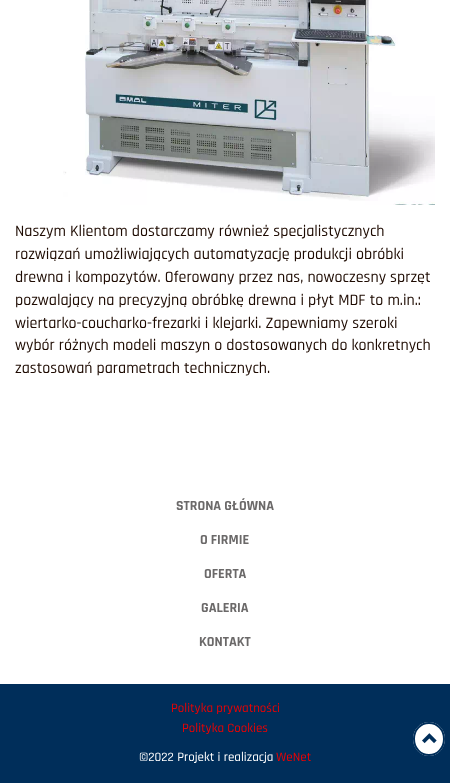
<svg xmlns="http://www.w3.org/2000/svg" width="450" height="783">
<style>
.a{font:500 16px Rajdhani;fill:#1e0b02}
.b{font:bold 14px Rajdhani;fill:#6b6969}
.c{font:500 13px Rajdhani;fill:#ec0202}
.d{font:500 13px Rajdhani;fill:#fff}
</style>
<rect width="100%" height="100%" fill="#fff"/>
<image href="1.png" x="63" y="0" width="372" height="205"/>
<path fill="#002e5a" d="M0 684h450v99H0z"/>
<ellipse fill="#fff" cx="429" cy="739" rx="16" ry="17"/>
<path fill="none" stroke="#002e5a" stroke-width="2" d="M429 723c8.5 0 15 7 15 16c0 9-6.5 16-15 16c-8.5 0-15-7-15-16c0-9 6.5-16 15-16z"/>
<image href="2.png" x="422" y="733" width="15" height="11"/>
<text class="a" x="15" y="236">Naszym Klientom dostarczamy również specjalistycznych</text>
<text class="a" x="15" y="259">rozwiązań umożliwiających automatyzację produkcji obróbki</text>
<text class="a" x="15" y="282">drewna i kompozytów. Oferowany przez nas, nowoczesny sprzęt</text>
<text class="a" x="15" y="305">pozwalający na precyzyjną obróbkę drewna i płyt MDF to m.in.:</text>
<text class="a" x="15" y="328">wiertarko-coucharko-frezarki i klejarki. Zapewniamy szeroki</text>
<text class="a" x="15" y="350">wybór różnych modeli maszyn o dostosowanych do konkretnych</text>
<text class="a" x="15" y="373">zastosowań parametrach technicznych.</text>
<text class="b" x="176" y="510">STRONA GŁÓWNA</text>
<text class="b" x="200" y="544">O FIRMIE</text>
<text class="b" x="204" y="578">OFERTA</text>
<text class="b" x="201" y="612">GALERIA</text>
<text class="b" x="199" y="646">KONTAKT</text>
<text class="c" x="171" y="712">Polityka prywatności</text>
<text class="c" x="182" y="732">Polityka Cookies</text>
<text class="d" x="139" y="761">©2022 Projekt i realizacja</text>
<text class="c" x="276" y="761">WeNet</text>
</svg>
